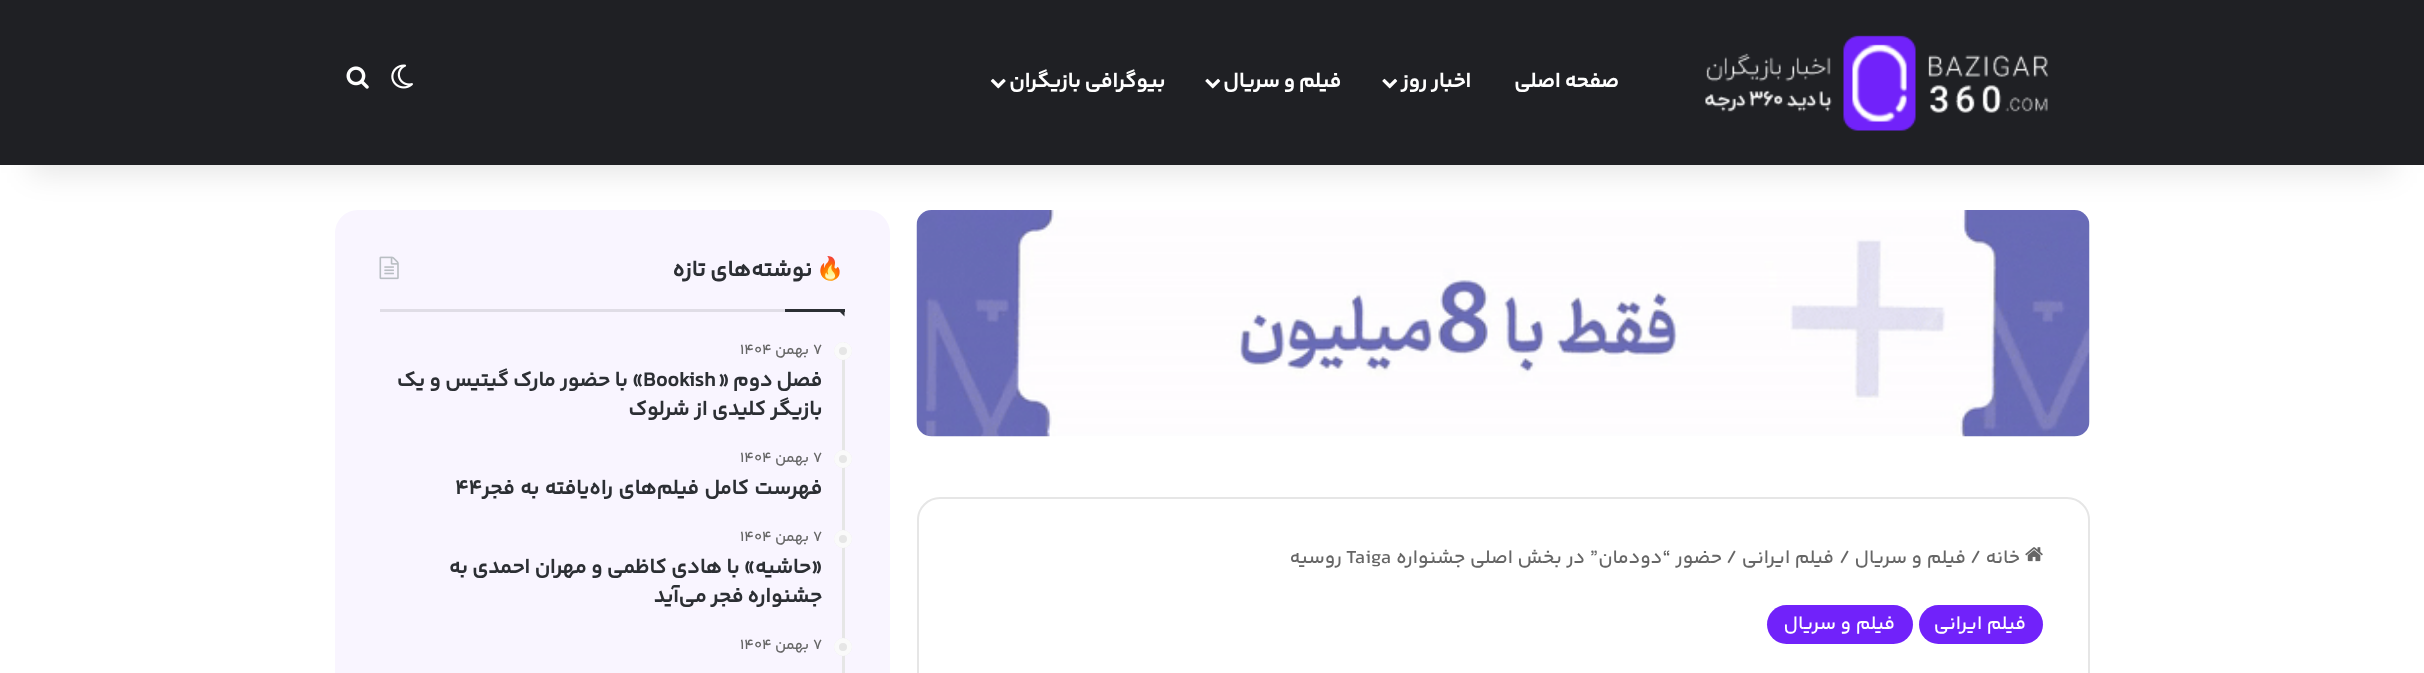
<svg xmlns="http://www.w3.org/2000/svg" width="2424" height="673">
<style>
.a{font:bold 21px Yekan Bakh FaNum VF;direction:rtl;fill:#fff}
.b{font:19.5px Yekan Bakh FaNum VF;direction:rtl;fill:#666}
.c{font:19.5px Yekan Bakh FaNum VF;fill:#666}
.d{font:19.5px Yekan Bakh FaNum VF;direction:rtl;fill:#fff}
.e{font:bold 22.5px Noto Color Emoji;direction:rtl;fill:#2c2f34}
.f{font:bold 22.5px Yekan Bakh FaNum VF;direction:rtl;fill:#2c2f34}
.g{font:15px Yekan Bakh FaNum VF;fill:#666}
.h{font:15px Yekan Bakh FaNum VF;direction:rtl;fill:#666}
.i{font:bold 21px Yekan Bakh FaNum VF;direction:rtl;fill:#2c2f34}
.j{font:bold 21px Yekan Bakh FaNum VF;fill:#2c2f34}
</style>
<rect width="100%" height="100%" fill="#fff"/>
<image href="6.png" x="916" y="210" width="1174" height="227"/>
<rect fill="#f9f5ff" x="335" y="210" width="555" height="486" rx="23"/>
<path fill="#0000001a" filter="blur(15px)" d="M30 68h2364v105H30z"/>
<path fill="#1f2024" d="M0 0h2424v165H0z"/>
<image href="1.png" x="1705" y="35" width="344" height="96"/>
<image href="2.png" x="1382" y="78" width="16" height="11"/>
<image href="2.png" x="1205" y="78" width="16" height="11"/>
<image href="3.png" x="990" y="78" width="16" height="11"/>
<image href="4.png" x="391" y="64" width="22" height="25"/>
<image href="5.png" x="346" y="66" width="23" height="23"/>
<rect fill="none" stroke="#e6e6e6" stroke-width="2" x="918" y="498" width="1171" height="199" rx="22"/>
<image href="7.png" x="2025" y="547" width="18" height="15"/>
<rect fill="#7122fa" x="1919" y="605" width="124" height="39" rx="19.5"/>
<rect fill="#7122fa" x="1767" y="605" width="146" height="39" rx="19.5"/>
<path fill="#e0dde6" d="M380 309h405v3H380z"/>
<image href="8.png" x="379" y="256" width="20" height="24"/>
<path fill="#2c2f34" d="M837 309h7.5v7.5z"/>
<path fill="#2c2f34" d="M785 309h60v3H785z"/>
<path fill="#e6e6e6" d="M842 342h3v331H842z"/>
<circle fill="#e6e6e6" cx="843" cy="351" r="9"/>
<circle fill="none" stroke="#ffffffcc" stroke-width="5" cx="843" cy="351" r="6.5"/>
<circle fill="#e6e6e6" cx="843" cy="459" r="9"/>
<circle fill="none" stroke="#ffffffcc" stroke-width="5" cx="843" cy="459" r="6.5"/>
<circle fill="#e6e6e6" cx="843" cy="539" r="9"/>
<circle fill="none" stroke="#ffffffcc" stroke-width="5" cx="843" cy="539" r="6.5"/>
<circle fill="#e6e6e6" cx="843" cy="647" r="9"/>
<circle fill="none" stroke="#ffffffcc" stroke-width="5" cx="843" cy="647" r="6.5"/>
<text class="a" x="1619" y="87" word-spacing="-1">صفحه اصلی</text>
<text class="a" x="1471" y="87" word-spacing="-1">اخبار روز</text>
<text class="a" x="1341" y="87" word-spacing="-1">فیلم و سریال</text>
<text class="a" x="1165" y="87" word-spacing="-1">بیوگرافی بازیگران</text>
<text class="b" x="2020" y="563">خانه</text>
<text class="c" x="1970" y="563">/</text>
<text class="b" x="1966" y="563">فیلم و سریال</text>
<text class="c" x="1839" y="563">/</text>
<text class="b" x="1834" y="563">فیلم ایرانی</text>
<text class="c" x="1726" y="563">/</text>
<text class="b" x="1722" y="563">حضور “دودمان” در بخش اصلی جشنواره</text>
<text class="c" x="1346" y="563">Taiga</text>
<text class="b" x="1342" y="563">روسیه</text>
<text class="d" x="2026" y="629">فیلم ایرانی</text>
<text class="d" x="1895" y="629">فیلم و سریال</text>
<text class="e" x="844" y="276">🔥</text>
<text class="f" x="812" y="276" word-spacing="-1">نوشته‌های تازه</text>
<text class="g" x="813" y="354">7</text>
<text class="h" x="809" y="354">بهمن</text>
<text class="g" x="740" y="354">1404</text>
<text class="i" x="822" y="386" word-spacing="-1">فصل دوم «</text>
<text class="i" x="643" y="386" word-spacing="-0.5">» با حضور مارک گیتیس و یک</text>
<text class="j" x="643" y="386">Bookish</text>
<text class="i" x="822" y="415" word-spacing="-0.5">بازیگر کلیدی از شرلوک</text>
<text class="g" x="813" y="462">7</text>
<text class="h" x="809" y="462">بهمن</text>
<text class="g" x="740" y="462">1404</text>
<text class="i" x="822" y="494" word-spacing="0.5">فهرست کامل فیلم‌های راه‌یافته به فجر</text>
<text class="j" x="455" y="494">۴۴</text>
<text class="g" x="813" y="541">7</text>
<text class="h" x="809" y="541">بهمن</text>
<text class="g" x="740" y="541">1404</text>
<text class="i" x="822" y="573" word-spacing="-0.5">«حاشیه» با هادی کاظمی و مهران احمدی به</text>
<text class="i" x="822" y="602" word-spacing="-1">جشنواره فجر می‌آید</text>
<text class="g" x="813" y="649">7</text>
<text class="h" x="809" y="649">بهمن</text>
<text class="g" x="740" y="649">1404</text>
</svg>
